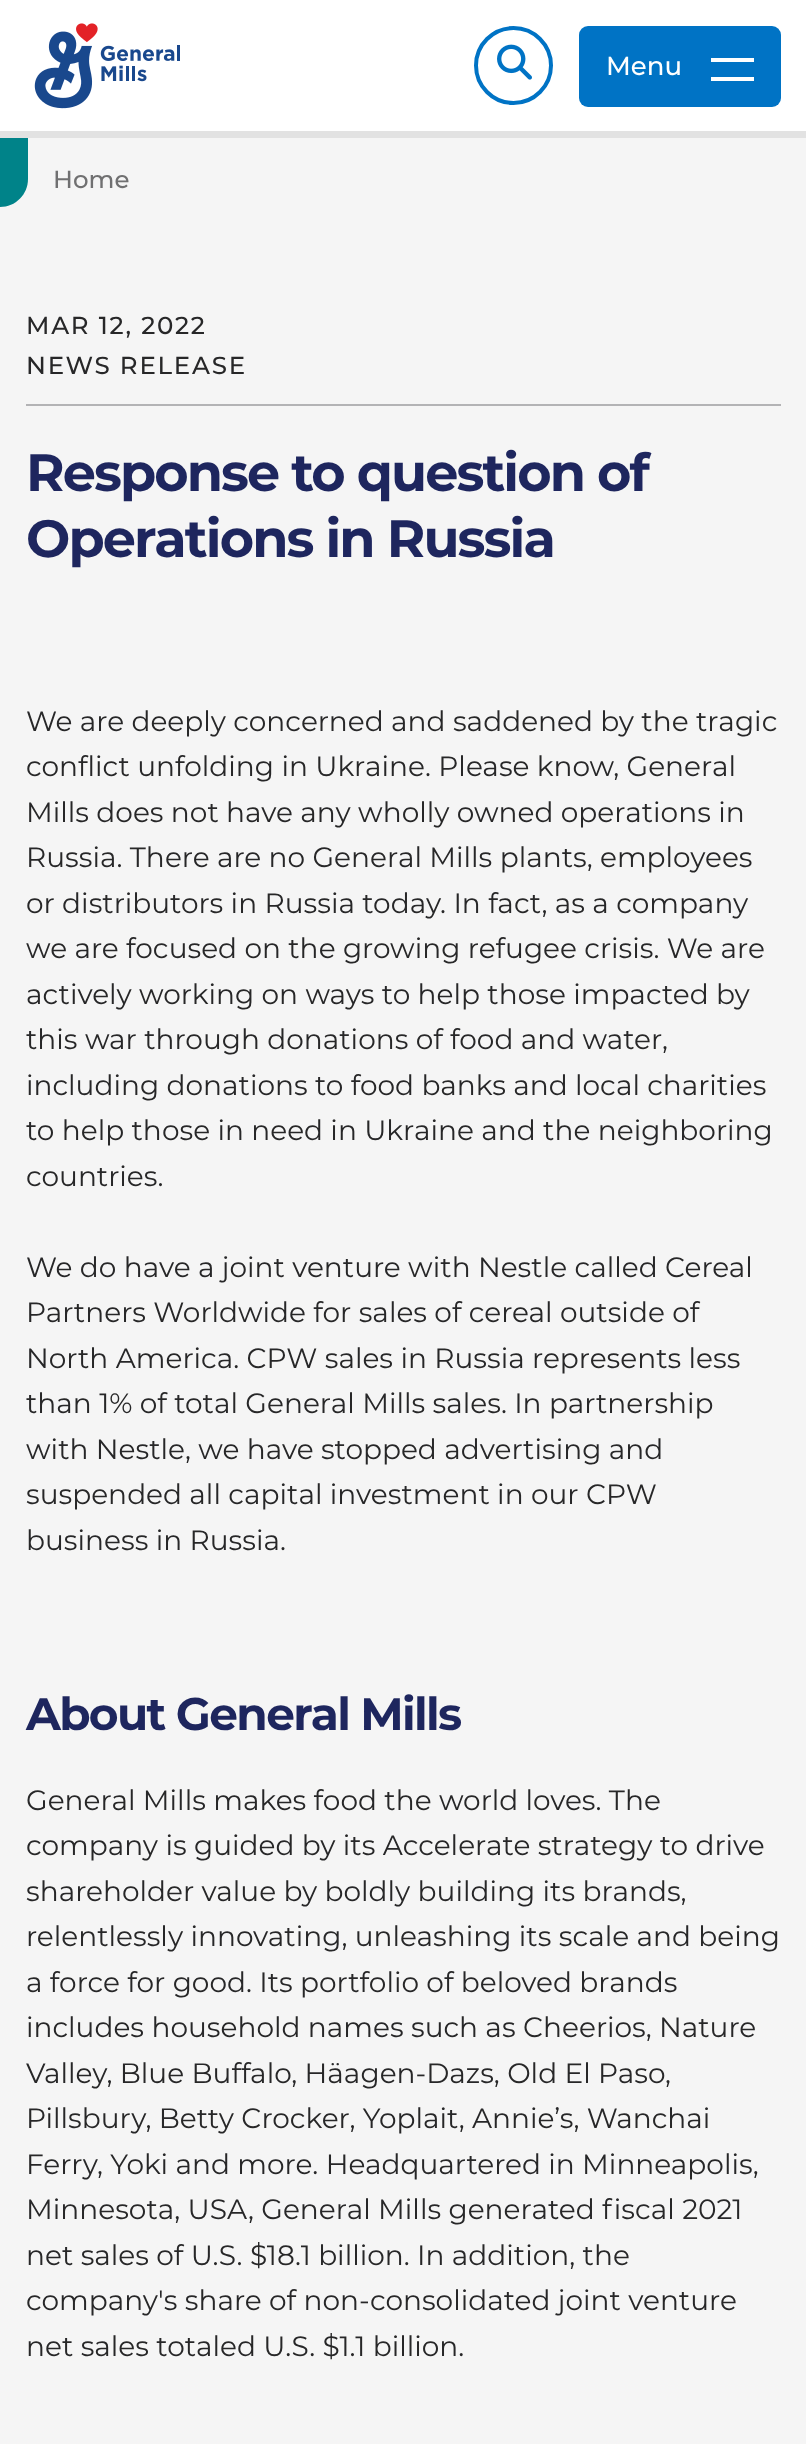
<svg xmlns="http://www.w3.org/2000/svg" width="806" height="2444">
<style>
.a{font:500 26px Montserrat;fill:#fff}
.b{font:500 24.5px Montserrat;fill:#707071}
.c{font:500 24.5px Montserrat;letter-spacing:1.75px;fill:#272728}
.d{font:bold 52.5px Montserrat;letter-spacing:-1.9px;fill:#1e265e}
.e{font:28px Montserrat;fill:#272728}
.f{font:bold 45.5px Montserrat;letter-spacing:-1.7px;fill:#1e265e}
</style>
<rect width="100%" height="100%" fill="#fff"/>
<path fill="#e2e2e2" d="M0 131h806v7H0z"/>
<image href="1.png" x="34" y="23" width="146" height="86"/>
<circle fill="none" stroke="#0073c5" stroke-width="4" cx="513.5" cy="65.5" r="37.5"/>
<image href="2.png" x="497" y="44" width="35" height="36"/>
<rect fill="#0073c5" x="579" y="26" width="202" height="81" rx="9"/>
<path fill="#fff" d="M711 58h43v4H711z"/>
<path fill="#fff" d="M711 77h43v4H711z"/>
<path fill="#f5f5f5" d="M0 138h806v2306H0z"/>
<path fill="#008389" d="M0 138h28v41c0 15.5-12.5 28-28 28z"/>
<path fill="#b3b3b5" d="M26 404h755v2H26z"/>
<text class="a" x="606" y="75">Menu</text>
<text class="b" x="53" y="188">Home</text>
<text class="c" x="26" y="334">MAR 12, 2022</text>
<text class="c" x="26" y="374">NEWS RELEASE</text>
<text class="d" x="26" y="491">Response to question of</text>
<text class="d" x="26" y="557">Operations in Russia</text>
<text class="e" x="26" y="731">We are deeply concerned and saddened by the tragic</text>
<text class="e" x="26" y="776">conflict unfolding in Ukraine. Please know, General</text>
<text class="e" x="26" y="822">Mills does not have any wholly owned operations in</text>
<text class="e" x="26" y="867">Russia. There are no General Mills plants, employees</text>
<text class="e" x="26" y="913">or distributors in Russia today. In fact, as a company</text>
<text class="e" x="26" y="958">we are focused on the growing refugee crisis. We are</text>
<text class="e" x="26" y="1004">actively working on ways to help those impacted by</text>
<text class="e" x="26" y="1049">this war through donations of food and water,</text>
<text class="e" x="26" y="1095">including donations to food banks and local charities</text>
<text class="e" x="26" y="1140">to help those in need in Ukraine and the neighboring</text>
<text class="e" x="26" y="1186">countries.</text>
<text class="e" x="26" y="1277">We do have a joint venture with Nestle called Cereal</text>
<text class="e" x="26" y="1322">Partners Worldwide for sales of cereal outside of</text>
<text class="e" x="26" y="1368">North America. CPW sales in Russia represents less</text>
<text class="e" x="26" y="1413">than 1% of total General Mills sales. In partnership</text>
<text class="e" x="26" y="1459">with Nestle, we have stopped advertising and</text>
<text class="e" x="26" y="1504">suspended all capital investment in our CPW</text>
<text class="e" x="26" y="1550">business in Russia.</text>
<text class="f" x="26" y="1730">About General Mills</text>
<text class="e" x="26" y="1810">General Mills makes food the world loves. The</text>
<text class="e" x="26" y="1855">company is guided by its Accelerate strategy to drive</text>
<text class="e" x="26" y="1901">shareholder value by boldly building its brands,</text>
<text class="e" x="26" y="1946">relentlessly innovating, unleashing its scale and being</text>
<text class="e" x="26" y="1992">a force for good. Its portfolio of beloved brands</text>
<text class="e" x="26" y="2037">includes household names such as Cheerios, Nature</text>
<text class="e" x="26" y="2083">Valley, Blue Buffalo, Häagen-Dazs, Old El Paso,</text>
<text class="e" x="26" y="2128">Pillsbury, Betty Crocker, Yoplait, Annie’s, Wanchai</text>
<text class="e" x="26" y="2174">Ferry, Yoki and more. Headquartered in Minneapolis,</text>
<text class="e" x="26" y="2219">Minnesota, USA, General Mills generated fiscal 2021</text>
<text class="e" x="26" y="2265">net sales of U.S. $18.1 billion. In addition, the</text>
<text class="e" x="26" y="2310">company's share of non-consolidated joint venture</text>
<text class="e" x="26" y="2356">net sales totaled U.S. $1.1 billion.</text>
</svg>
